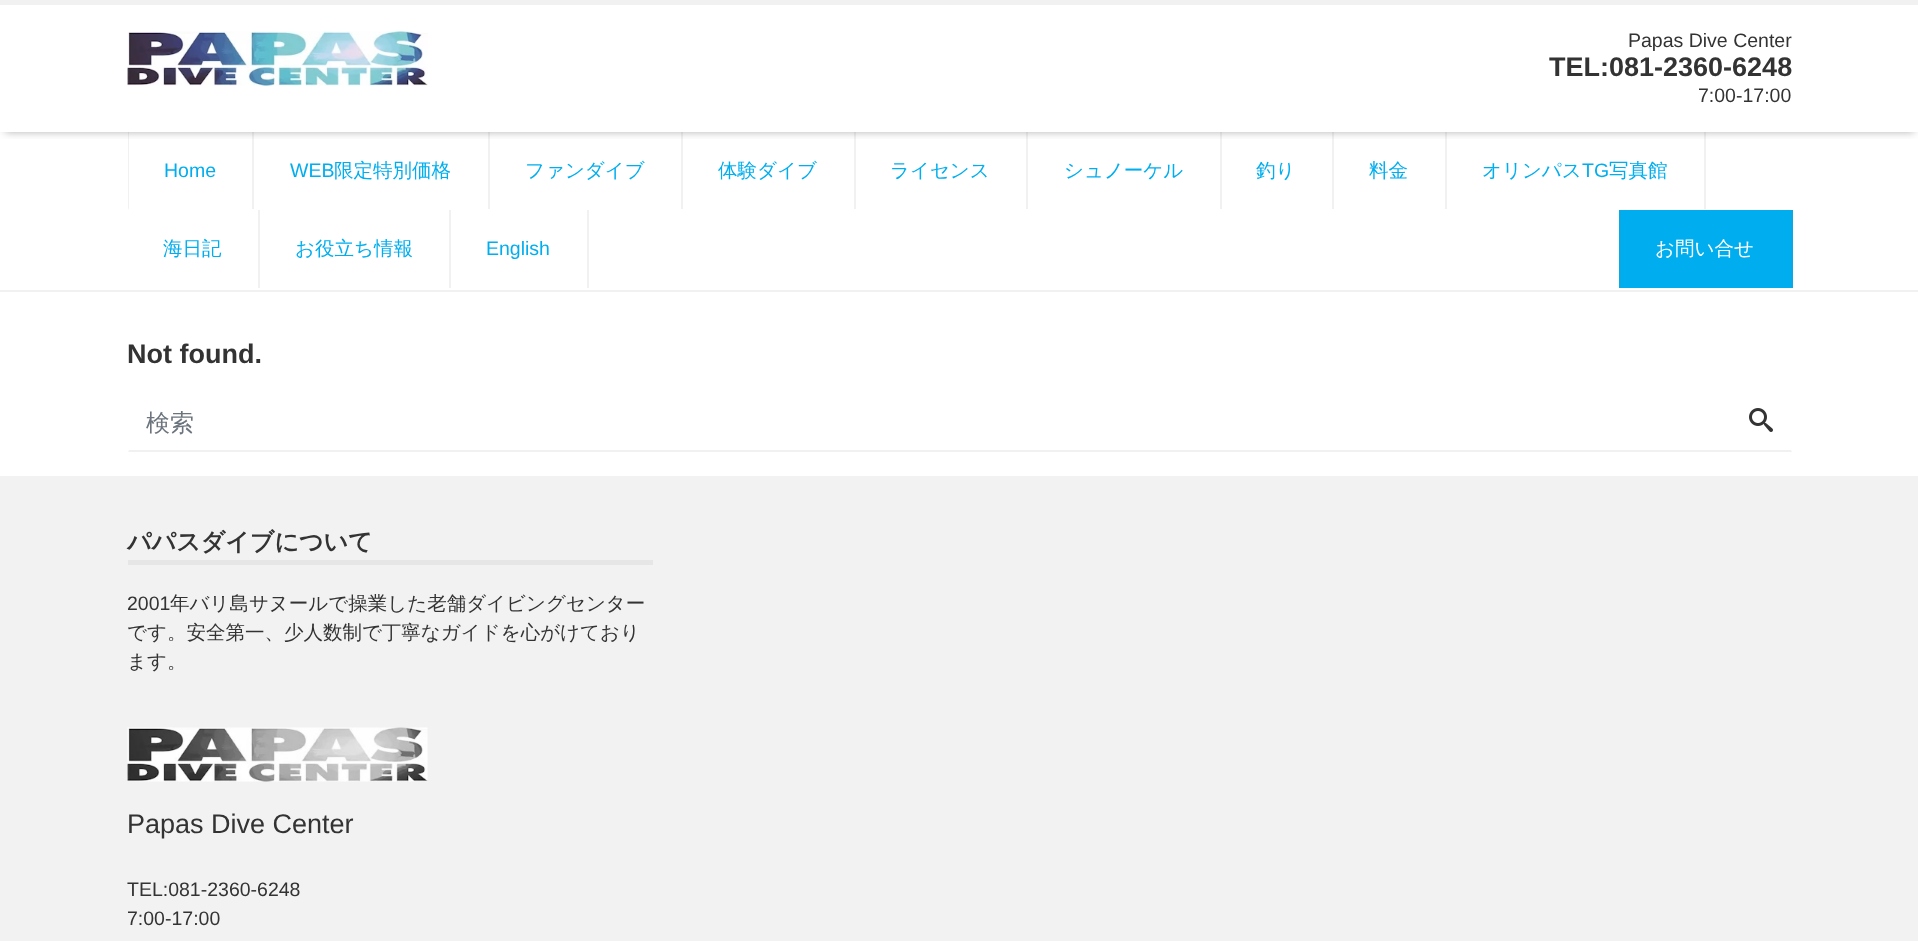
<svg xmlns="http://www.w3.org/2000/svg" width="1918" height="941">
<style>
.a{font:19.5px Liberation Sans;fill:#333}
.b{font:bold 27px Liberation Sans;fill:#333}
.c{font:19.5px Liberation Sans;fill:#00aeef}
.d{font:500 19.5px WenQuanYi Zen Hei;fill:#00aeef}
.e{font:500 19.5px WenQuanYi Zen Hei;fill:#fff}
.f{font:500 24px WenQuanYi Zen Hei;fill:#6c757d}
.g{font:bold 24px WenQuanYi Zen Hei;fill:#333}
.h{font:500 19.5px WenQuanYi Zen Hei;fill:#333}
.i{font:27px Liberation Sans;fill:#333}
</style>
<defs>
<clipPath id="clip1"><path d="M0 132h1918v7H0z"/></clipPath>
</defs>
<rect width="100%" height="100%" fill="#fff"/>
<path fill="#f1f1f1" d="M128 210v-78h1v76z"/>
<path fill="#f1f1f1" d="M252 132h2v77H252z"/>
<path fill="#f1f1f1" d="M488 132h2v77H488z"/>
<path fill="#f1f1f1" d="M681 132h2v77H681z"/>
<path fill="#f1f1f1" d="M854 132h2v77H854z"/>
<path fill="#f1f1f1" d="M1026 132h2v77H1026z"/>
<path fill="#f1f1f1" d="M1220 132h2v77H1220z"/>
<path fill="#f1f1f1" d="M1332 132h2v77H1332z"/>
<path fill="#f1f1f1" d="M1445 132h2v77H1445z"/>
<path fill="#f1f1f1" d="M1704 132h2v77H1704z"/>
<g clip-path="url(#clip1)">
<path fill="#0000004d" filter="blur(4.5px)" d="M5 -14h1909v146H5z"/>
</g>
<path fill="#f1f1f1" d="M0 0h1918v5H0z"/>
<image href="1.png" x="127" y="31" width="301" height="55"/>
<path fill="#f1f1f1" d="M0 290h1918v2H0z"/>
<path fill="#f1f1f1" d="M258 210h2v78H258z"/>
<path fill="#f1f1f1" d="M449 210h2v78H449z"/>
<path fill="#f1f1f1" d="M587 210h2v78H587z"/>
<path fill="#00aeef" d="M1621 210h170v78H1621z"/>
<path fill="#0ca8e3" d="M1791 210h2v78H1791z"/>
<path fill="#0ca8e3" d="M1619 210h2v78H1619z"/>
<path fill="#f1f1f1" d="M1792 452h-1664l1-2h1662z"/>
<image href="2.png" x="1749" y="408" width="24" height="24"/>
<path fill="#f2f2f2" d="M0 476h1918v465H0z"/>
<path fill="#e6e6e6" d="M128 560h525v5H128z"/>
<image href="3.png" x="127" y="727" width="301" height="55"/>
<text class="a" x="1628" y="47">Papas Dive Center</text>
<text class="b" x="1549" y="76">TEL:081-2360-6248</text>
<text class="a" x="1698" y="102">7:00-17:00</text>
<text class="c" x="164" y="177">Home</text>
<text class="c" x="290" y="177">WEB</text>
<text class="d" x="334" y="177">限定特別価格</text>
<text class="d" x="525" y="177">ファンダイブ</text>
<text class="d" x="718" y="177">体験ダイブ</text>
<text class="d" x="890" y="177">ライセンス</text>
<text class="d" x="1064" y="177">シュノーケル</text>
<text class="d" x="1256" y="177">釣り</text>
<text class="d" x="1369" y="177">料金</text>
<text class="d" x="1482" y="177">オリンパス</text>
<text class="c" x="1582" y="177">TG</text>
<text class="d" x="1609" y="177">写真館</text>
<text class="d" x="163" y="255">海日記</text>
<text class="d" x="295" y="255">お役立ち情報</text>
<text class="c" x="486" y="255">English</text>
<text class="e" x="1655" y="255">お問い合せ</text>
<text class="b" x="127" y="363">Not found.</text>
<text class="f" x="146" y="431">検索</text>
<text class="g" x="127" y="550">パパスダイブについて</text>
<text class="a" x="127" y="610">2001</text>
<text class="h" x="170" y="610">年バリ島サヌールで操業した老舗ダイビングセンター</text>
<text class="h" x="127" y="639">です。安全第一、少人数制で丁寧なガイドを心がけており</text>
<text class="h" x="127" y="668">ます。</text>
<text class="i" x="127" y="833">Papas Dive Center</text>
<text class="a" x="127" y="896">TEL:081-2360-6248</text>
<text class="a" x="127" y="925">7:00-17:00</text>
</svg>
